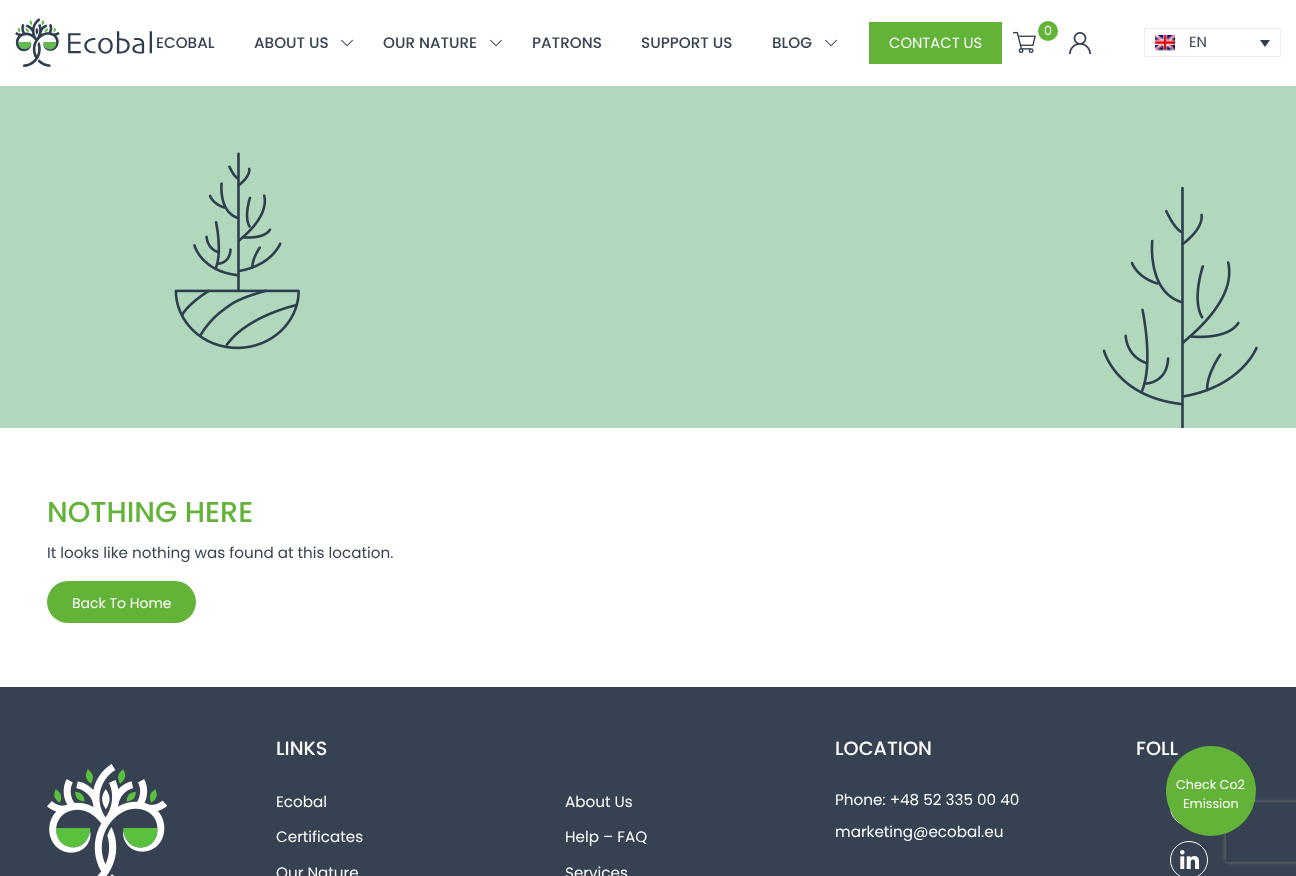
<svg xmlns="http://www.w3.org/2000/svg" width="1296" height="876">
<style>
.a{font:500 15.2px Poppins;fill:#374353}
.b{font:12.75px Poppins;fill:#fff}
.c{font:14.75px Poppins;fill:#fff}
.d{font:14.75px Poppins;fill:#374353}
.e{font:500 28.75px Poppins;fill:#64b339}
.f{font:15.2px Poppins;fill:#374353}
.g{font:14px Poppins;fill:#fff}
.h{font:500 19.25px Poppins;fill:#fff}
.i{font:15.2px Poppins;fill:#fff}
</style>
<defs>
<clipPath id="clip1"><path d="M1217 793h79v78h-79zm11 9h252c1 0 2 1 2 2v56c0 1-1 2-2 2h-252c-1 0-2-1-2-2v-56c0-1 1-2 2-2z" clip-rule="evenodd"/></clipPath>
</defs>
<rect width="100%" height="100%" fill="#fff"/>
<image href="1.png" x="15" y="18" width="137" height="49"/>
<image href="2.png" x="341" y="39" width="12" height="8"/>
<image href="2.png" x="490" y="39" width="12" height="8"/>
<image href="2.png" x="825" y="39" width="12" height="8"/>
<circle fill="#64b339" cx="1048" cy="31" r="10"/>
<image href="3.png" x="1013" y="31" width="23" height="22"/>
<image href="4.png" x="1069" y="32" width="22" height="22"/>
<path fill="#64b339" d="M869 22h133v42H869z"/>
<path fill="none" stroke="#ececec" d="M1144.5 28.5h136v28H1144.5z"/>
<image href="5.png" x="1155" y="35" width="21" height="16"/>
<path fill="#343f4e" d="M1260 40h10l-5 7z"/>
<image href="6.png" x="0" y="86" width="1296" height="342"/>
<rect fill="#64b339" x="47" y="581" width="149" height="42" rx="21"/>
<path fill="#364151" d="M0 687h1296v189H0z"/>
<circle fill="none" stroke="#fff" cx="1189" cy="807" r="18.5"/>
<image href="7.png" x="1180" y="850" width="19" height="19"/>
<circle fill="none" stroke="#fff" cx="1189" cy="860" r="18.5"/>
<image href="8.png" x="47" y="764" width="120" height="112"/>
<g clip-path="url(#clip1)">
<rect fill="#808080" filter="blur(2.5px)" x="1226" y="802" width="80" height="60" rx="2"/>
</g>
<text class="a" x="156" y="48">ECOBAL</text>
<text class="a" x="254" y="48">ABOUT US</text>
<text class="a" x="383" y="48">OUR NATURE</text>
<text class="a" x="532" y="48">PATRONS</text>
<text class="a" x="641" y="48">SUPPORT US</text>
<text class="a" x="772" y="48">BLOG</text>
<text class="b" x="1044" y="35">0</text>
<text class="c" x="889" y="48">CONTACT US</text>
<text class="d" x="1189" y="47">EN</text>
<text class="e" x="47" y="522">NOTHING HERE</text>
<text class="f" x="47" y="558">It looks like nothing was found at this location.</text>
<text class="g" x="72" y="608">Back To Home</text>
<text class="h" x="276" y="755">LINKS</text>
<text class="i" x="276" y="807">Ecobal</text>
<text class="i" x="565" y="807">About Us</text>
<text class="i" x="276" y="842">Certificates</text>
<text class="i" x="565" y="842">Help – FAQ</text>
<text class="i" x="276" y="878">Our Nature</text>
<text class="i" x="565" y="878">Services</text>
<text class="h" x="835" y="755">LOCATION</text>
<text class="i" x="835" y="805">Phone: +48 52 335 00 40</text>
<text class="i" x="835" y="837">marketing@ecobal.eu</text>
<text class="h" x="1136" y="755">FOLL</text>
<circle fill="#64b339" cx="1211" cy="791" r="45"/>
<text class="b" x="1176" y="789">Check Co2</text>
<text class="b" x="1183" y="808">Emission</text>
</svg>
